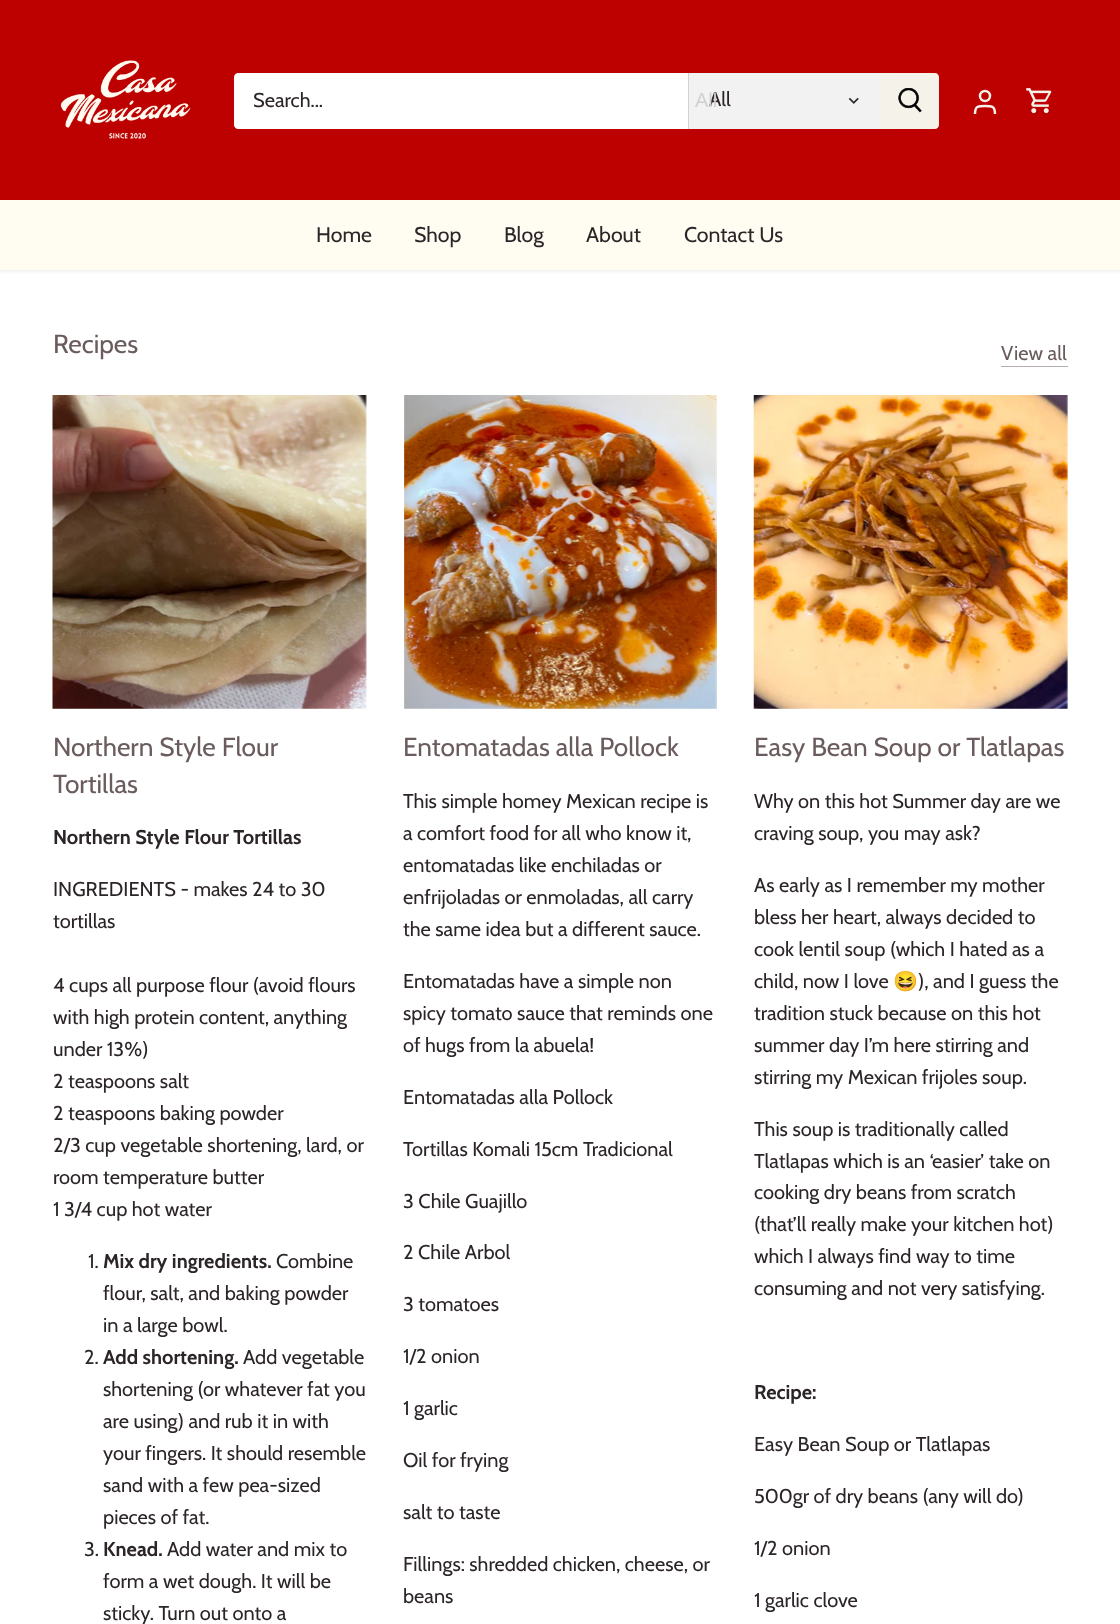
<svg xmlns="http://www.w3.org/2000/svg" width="1120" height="1624">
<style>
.a{font:20px Cabin;fill:#2c2528}
.b{font:20px Liberation Sans;fill:#d1d0d0}
.c{font:21.25px Cabin;fill:#2c2528}
.d{font:26.25px Cabin;fill:#6a5b5c}
.e{font:20px Cabin;fill:#6a5b5c}
.f{font:bold 20px Cabin;fill:#2c2528}
.g{font:20px Noto Color Emoji;fill:#2c2528}
</style>
<rect width="100%" height="100%" fill="#fff"/>
<path fill="#00000014" filter="blur(2px)" d="M-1 -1h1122v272H-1z"/>
<path fill="#fffcf2" d="M0 200h1120v70H0z"/>
<path fill="#bd0101" d="M0 0h1120v200H0z"/>
<image href="1.png" x="60" y="60" width="131" height="79"/>
<path fill="#fff" d="M238 73h450v56h-450c-2 0-4-2-4-4v-48c0-2 2-4 4-4z"/>
<path fill="#f2f2f2" d="M689 73h192v56H689z"/>
<path fill="#d3d1d2" d="M688 73h1v56H688z"/>
<image href="2.png" x="848" y="97" width="11" height="7"/>
<path fill="#f4f2e9" d="M881 73h54c2 0 4 2 4 4v48c0 2-2 4-4 4h-54z"/>
<image href="3.png" x="898" y="88" width="24" height="25"/>
<circle fill="none" stroke="#f4f2e9" stroke-width="2.5" cx="985" cy="96" r="5"/>
<path fill="none" stroke="#f4f2e9" stroke-width="2.5" d="M995 114c0-8-3-8-10-8c-7 0-10 0-10 8"/>
<image href="4.png" x="1026" y="88" width="26" height="26"/>
<path fill="#b5adae" d="M1001 366h67v1H1001z"/>
<image href="5.png" x="52" y="395" width="315" height="314"/>
<image href="6.png" x="404" y="395" width="313" height="314"/>
<image href="7.png" x="753" y="395" width="315" height="314"/>
<text class="a" x="253" y="107">Search...</text>
<text class="a" x="709" y="106">All</text>
<text class="b" x="695" y="107">All</text>
<text class="c" x="316" y="242">Home</text>
<text class="c" x="414" y="242">Shop</text>
<text class="c" x="504" y="242">Blog</text>
<text class="c" x="586" y="242">About</text>
<text class="c" x="684" y="242">Contact Us</text>
<text class="d" x="53" y="353">Recipes</text>
<text class="e" x="1001" y="360">View all</text>
<text class="d" x="53" y="756">Northern Style Flour</text>
<text class="d" x="53" y="793">Tortillas</text>
<text class="f" x="53" y="844">Northern Style Flour Tortillas</text>
<text class="a" x="53" y="896">INGREDIENTS - makes 24 to 30</text>
<text class="a" x="53" y="928">tortillas</text>
<text class="a" x="53" y="992">4 cups all purpose flour (avoid flours</text>
<text class="a" x="53" y="1024">with high protein content, anything</text>
<text class="a" x="53" y="1056">under 13%)</text>
<text class="a" x="53" y="1088">2 teaspoons salt</text>
<text class="a" x="53" y="1120">2 teaspoons baking powder</text>
<text class="a" x="53" y="1152">2/3 cup vegetable shortening, lard, or</text>
<text class="a" x="53" y="1184">room temperature butter</text>
<text class="a" x="53" y="1216">1 3/4 cup hot water</text>
<text class="a" x="88" y="1268">1.</text>
<text class="f" x="103" y="1268">Mix dry ingredients.</text>
<text class="a" x="276" y="1268">Combine</text>
<text class="a" x="103" y="1300">flour, salt, and baking powder</text>
<text class="a" x="103" y="1332">in a large bowl.</text>
<text class="a" x="84" y="1364">2.</text>
<text class="f" x="103" y="1364">Add shortening.</text>
<text class="a" x="243" y="1364">Add vegetable</text>
<text class="a" x="103" y="1396">shortening (or whatever fat you</text>
<text class="a" x="103" y="1428">are using) and rub it in with</text>
<text class="a" x="103" y="1460">your fingers. It should resemble</text>
<text class="a" x="103" y="1492">sand with a few pea-sized</text>
<text class="a" x="103" y="1524">pieces of fat.</text>
<text class="a" x="84" y="1556">3.</text>
<text class="f" x="103" y="1556">Knead.</text>
<text class="a" x="167" y="1556">Add water and mix to</text>
<text class="a" x="103" y="1588">form a wet dough. It will be</text>
<text class="a" x="103" y="1620">sticky. Turn out onto a</text>
<text class="d" x="403" y="756">Entomatadas alla Pollock</text>
<text class="a" x="403" y="808">This simple homey Mexican recipe is</text>
<text class="a" x="403" y="840">a comfort food for all who know it,</text>
<text class="a" x="403" y="872">entomatadas like enchiladas or</text>
<text class="a" x="403" y="904">enfrijoladas or enmoladas, all carry</text>
<text class="a" x="403" y="936">the same idea but a different sauce.</text>
<text class="a" x="403" y="988">Entomatadas have a simple non</text>
<text class="a" x="403" y="1020">spicy tomato sauce that reminds one</text>
<text class="a" x="403" y="1052">of hugs from la abuela!</text>
<text class="a" x="403" y="1104">Entomatadas alla Pollock</text>
<text class="a" x="403" y="1156">Tortillas Komali 15cm Tradicional</text>
<text class="a" x="403" y="1208">3 Chile Guajillo</text>
<text class="a" x="403" y="1259">2 Chile Arbol</text>
<text class="a" x="403" y="1311">3 tomatoes</text>
<text class="a" x="403" y="1363">1/2 onion</text>
<text class="a" x="403" y="1415">1 garlic</text>
<text class="a" x="403" y="1467">Oil for frying</text>
<text class="a" x="403" y="1519">salt to taste</text>
<text class="a" x="403" y="1571">Fillings: shredded chicken, cheese, or</text>
<text class="a" x="403" y="1603">beans</text>
<text class="d" x="754" y="756">Easy Bean Soup or Tlatlapas</text>
<text class="a" x="754" y="808">Why on this hot Summer day are we</text>
<text class="a" x="754" y="840">craving soup, you may ask?</text>
<text class="a" x="754" y="892">As early as I remember my mother</text>
<text class="a" x="754" y="924">bless her heart, always decided to</text>
<text class="a" x="754" y="956">cook lentil soup (which I hated as a</text>
<text class="a" x="754" y="988">child, now I love</text>
<text class="g" x="893" y="988">😆</text>
<text class="a" x="918" y="988">), and I guess the</text>
<text class="a" x="754" y="1020">tradition stuck because on this hot</text>
<text class="a" x="754" y="1052">summer day I’m here stirring and</text>
<text class="a" x="754" y="1084">stirring my Mexican frijoles soup.</text>
<text class="a" x="754" y="1136">This soup is traditionally called</text>
<text class="a" x="754" y="1168">Tlatlapas which is an ‘easier’ take on</text>
<text class="a" x="754" y="1199">cooking dry beans from scratch</text>
<text class="a" x="754" y="1231">(that’ll really make your kitchen hot)</text>
<text class="a" x="754" y="1263">which I always find way to time</text>
<text class="a" x="754" y="1295">consuming and not very satisfying.</text>
<text class="f" x="754" y="1399">Recipe:</text>
<text class="a" x="754" y="1451">Easy Bean Soup or Tlatlapas</text>
<text class="a" x="754" y="1503">500gr of dry beans (any will do)</text>
<text class="a" x="754" y="1555">1/2 onion</text>
<text class="a" x="754" y="1607">1 garlic clove</text>
</svg>
